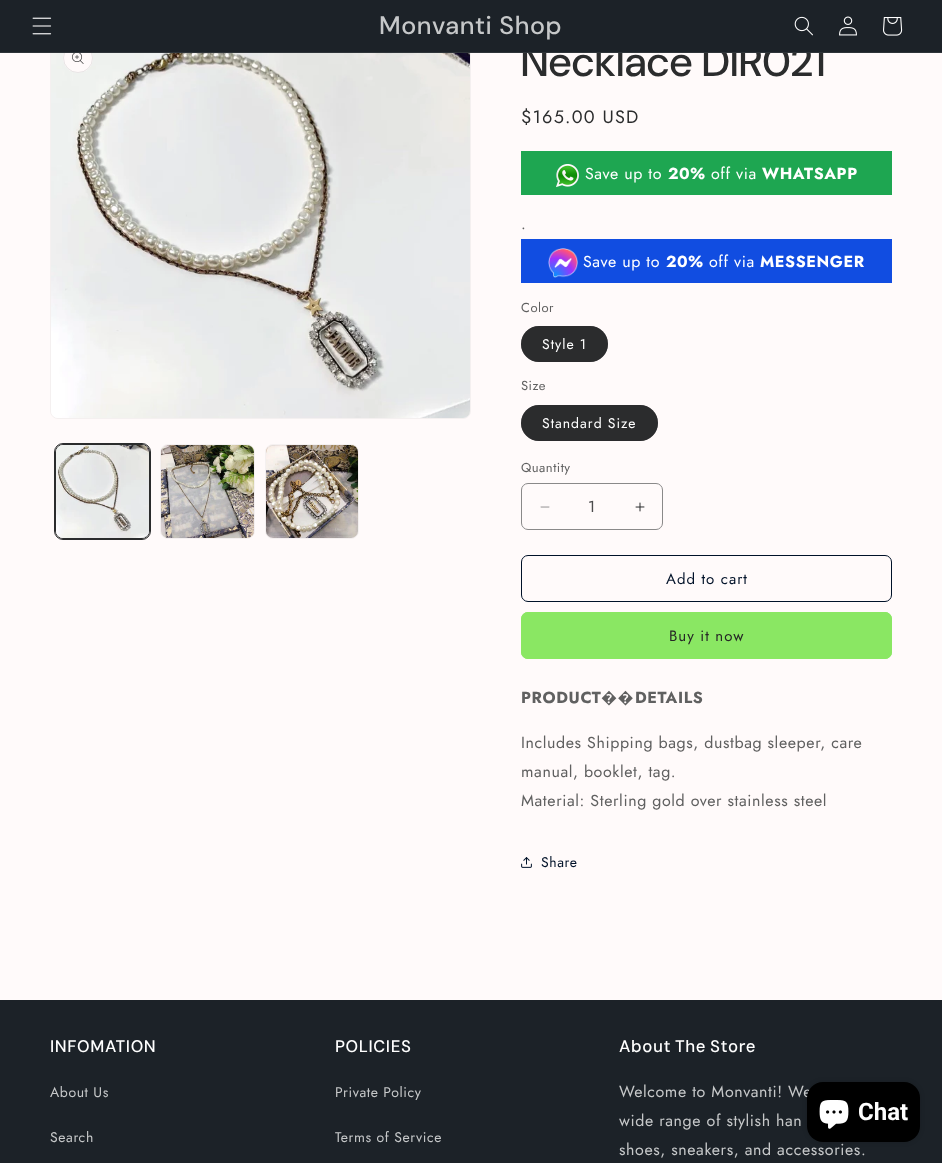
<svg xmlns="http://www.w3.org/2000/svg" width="942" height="1163">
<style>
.a{font:500 42px DM Sans;letter-spacing:0.6px;fill:#2b2c2d}
.b{font:500 25.25px 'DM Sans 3';letter-spacing:0.6px;fill:#c6c8c9}
.c{font:18px Jost;letter-spacing:1.25px;fill:#2b2c2d}
.d{font:16px Jost;letter-spacing:0.6px;fill:#fff}
.e{font:bold 16px Jost;letter-spacing:0.6px;fill:#fff}
.f{font:16px Jost;letter-spacing:0.6px;fill:#606060}
.g{font:13px Jost;letter-spacing:0.5px;fill:#606060}
.h{font:14px Jost;letter-spacing:1px;fill:#fff}
.i{font:16px Jost;fill:#4b4b4c}
.j{font:15px Jost;letter-spacing:1px;fill:#001128}
.k{font:15px Jost;letter-spacing:1px;fill:#262626}
.l{font:bold 16px Jost;letter-spacing:0.6px;fill:#606060}
.m{font:bold 16px Noto Sans;letter-spacing:0.6px;fill:#606060}
.n{font:14px Jost;letter-spacing:0.6px;fill:#001128}
.o{font:500 16.75px 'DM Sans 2';letter-spacing:0.6px;fill:#fff}
.p{font:14px Jost;letter-spacing:0.6px;fill:#c6c8c9}
.q{font:16px Jost;letter-spacing:0.6px;fill:#c6c8c9}
.r{font:bold 24px Roboto;fill:#fff}
</style>
<rect width="100%" height="100%" fill="#fffafa"/>
<rect fill="none" stroke="#f4f0f0" x="50.5" y="30.5" width="420" height="388" rx="7.5"/>
<image href="6.png" x="51" y="53" width="419" height="365"/>
<circle fill="#fffafa" cx="78" cy="58" r="15"/>
<circle fill="none" stroke="#2b2c2d1a" cx="78" cy="58" r="14.5"/>
<image href="5.png" x="72" y="53" width="12" height="11"/>
<rect fill="none" stroke="#2b2c2d" x="54.5" y="443.5" width="96" height="96" rx="8.5"/>
<rect fill="none" stroke="#2b2c2d" x="55.5" y="444.5" width="94" height="94" rx="7.5"/>
<image href="7.png" x="56" y="445" width="93" height="93"/>
<rect fill="none" stroke="#f4f0f0" x="160.5" y="444.5" width="94" height="94" rx="7.5"/>
<image href="8.png" x="161" y="445" width="93" height="93"/>
<rect fill="none" stroke="#f4f0f0" x="265.5" y="444.5" width="93" height="94" rx="7.5"/>
<image href="9.png" x="266" y="445" width="92" height="93"/>
<path fill="#1ea651" d="M521 151h371v44H521z"/>
<image href="10.png" x="556" y="164" width="23" height="24"/>
<path fill="#114de1" d="M521 239h371v44H521z"/>
<image href="11.png" x="548" y="248" width="30" height="30"/>
<rect fill="#2b2c2d" x="521" y="326" width="87" height="36" rx="18"/>
<rect fill="none" stroke="#2b2c2d8c" x="521.5" y="326.5" width="86" height="35" rx="17.5"/>
<rect fill="#2b2c2d" x="521" y="405" width="137" height="36" rx="18"/>
<rect fill="none" stroke="#2b2c2d8c" x="521.5" y="405.5" width="136" height="35" rx="17.5"/>
<image href="12.png" x="540" y="506" width="10" height="2"/>
<image href="13.png" x="635" y="502" width="10" height="10"/>
<rect fill="none" stroke="#8a8989" x="521.5" y="483.5" width="141" height="46" rx="6.5"/>
<rect fill="none" stroke="#001128" x="521.5" y="555.5" width="370" height="46" rx="6.5"/>
<rect fill="#8ae763" x="521" y="612" width="371" height="47" rx="7"/>
<rect fill="none" stroke="#8ae763" x="521.5" y="612.5" width="370" height="46" rx="6.5"/>
<image href="14.png" x="521" y="857" width="11" height="11"/>
<path fill="#1c2228" d="M0 1000h942v163H0z"/>
<rect fill="#00000026" filter="blur(2.5px)" x="807" y="1082" width="113" height="60" rx="16"/>
<text class="a" x="521" y="76">Necklace DIR021</text>
<path fill="#1c2228" d="M0 0h942v52H0z"/>
<image href="4.png" x="883" y="17" width="20" height="19"/>
<image href="2.png" x="794" y="16" width="19" height="20"/>
<image href="1.png" x="32" y="17" width="20" height="18"/>
<image href="3.png" x="839" y="16" width="18" height="20"/>
<text class="b" x="379" y="34">Monvanti Shop</text>
<path fill="#2e3439" d="M0 52h942v1H0z"/>
<text class="c" x="521" y="123">$165.00 USD</text>
<text class="d" x="585" y="179">Save up to</text>
<text class="e" x="668" y="179">20%</text>
<text class="d" x="711" y="179">off via</text>
<text class="e" x="762" y="179">WHATSAPP</text>
<text class="f" x="521" y="229">.</text>
<text class="d" x="583" y="267">Save up to</text>
<text class="e" x="666" y="267">20%</text>
<text class="d" x="709" y="267">off via</text>
<text class="e" x="760" y="267">MESSENGER</text>
<text class="g" x="521" y="312">Color</text>
<text class="h" x="542" y="349">Style 1</text>
<text class="g" x="521" y="390">Size</text>
<text class="h" x="542" y="428">Standard Size</text>
<text class="g" x="521" y="472">Quantity</text>
<text class="i" x="588" y="512">1</text>
<text class="j" x="666" y="584">Add to cart</text>
<text class="k" x="669" y="641">Buy it now</text>
<text class="l" x="521" y="703">PRODUCT</text>
<text class="m" x="601" y="703">��</text>
<text class="l" x="635" y="703">DETAILS</text>
<text class="f" x="521" y="748">Includes Shipping bags, dustbag sleeper, care</text>
<text class="f" x="521" y="777">manual, booklet, tag.</text>
<text class="f" x="521" y="806">Material: Sterling gold over stainless steel</text>
<text class="n" x="541" y="867">Share</text>
<text class="o" x="50" y="1052">INFOMATION</text>
<text class="p" x="50" y="1097">About Us</text>
<text class="p" x="50" y="1142">Search</text>
<text class="o" x="335" y="1052">POLICIES</text>
<text class="p" x="335" y="1097">Private Policy</text>
<text class="p" x="335" y="1142">Terms of Service</text>
<text class="o" x="619" y="1052" word-spacing="-1">About The Store</text>
<text class="q" x="619" y="1097">Welcome to Monvanti! We</text>
<text class="q" x="619" y="1126">wide range of stylish han</text>
<text class="q" x="619" y="1155">shoes, sneakers, and accessories.</text>
<rect fill="#000" x="807" y="1082" width="113" height="60" rx="16"/>
<image href="15.png" x="819" y="1100" width="30" height="29"/>
<text class="r" x="858" y="1120">Chat</text>
</svg>
